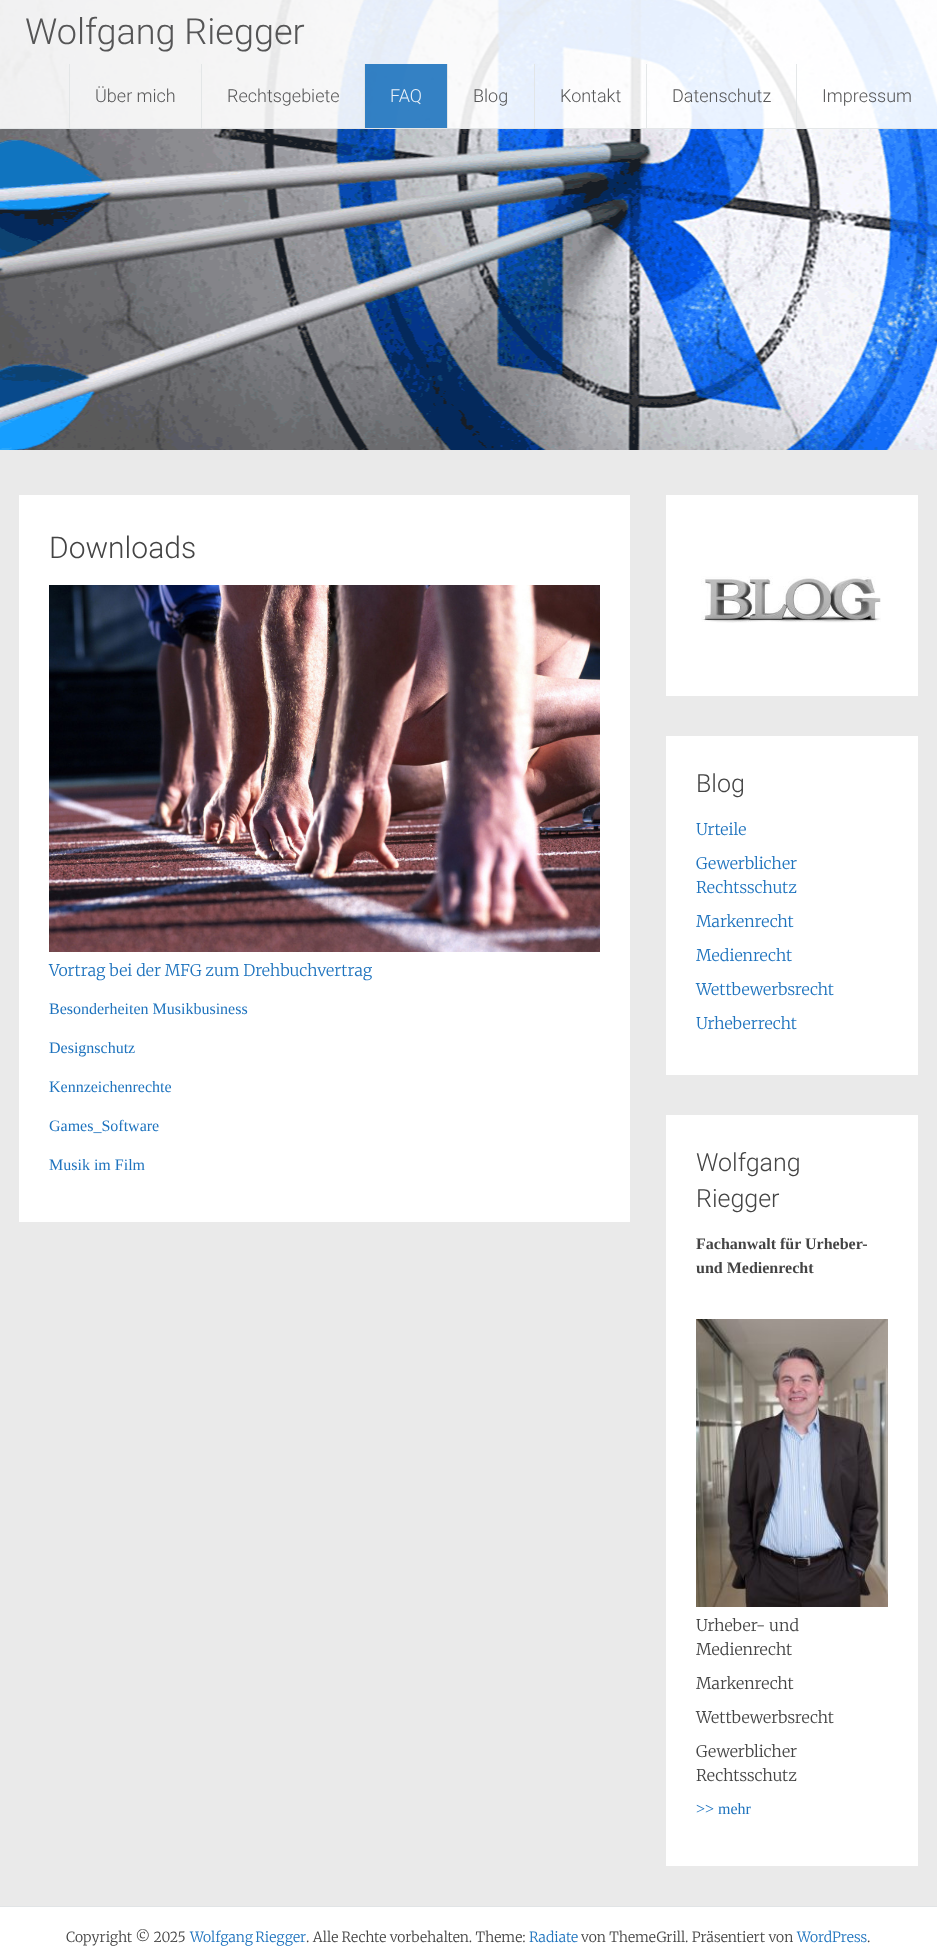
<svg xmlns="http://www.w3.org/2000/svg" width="937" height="1958">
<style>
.a{font:300 36px Roboto;fill:#555556}
.b{font:300 18px Roboto;fill:#555556}
.c{font:300 18px Roboto;fill:#ebf2f9}
.d{font:300 30px Roboto;fill:#444}
.e{font:300 16px Merriweather;fill:#1e73be}
.f{font:16px Liberation Serif;fill:#1e73be}
.g{font:300 25px Roboto;fill:#444}
.h{font:bold 16px Liberation Serif;fill:#444}
.i{font:300 16px Merriweather;fill:#444}
.j{font:300 14px Merriweather;fill:#444}
.k{font:300 14px Merriweather;fill:#1e73be}
</style>
<rect width="100%" height="100%" fill="#fff"/>
<image href="1.png" x="0" y="0" width="937" height="450"/>
<path fill="#ffffffe6" d="M0 0h937v129H0z"/>
<path fill="#e1e4e6e6" d="M0 128h937v1H0z"/>
<path fill="#e1e4e6e6" d="M69 64h1v64H69z"/>
<path fill="#e3e6e7" d="M201 64h1v64H201z"/>
<path fill="#e1e4e6e6" d="M364 64h1v64H364z"/>
<path fill="#1e73bee6" d="M365 64h82v64H365z"/>
<path fill="#e1e4e6e6" d="M447 64h1v64H447z"/>
<path fill="#e1e4e6e6" d="M534 64h1v64H534z"/>
<path fill="#e1e4e6e6" d="M646 64h1v64H646z"/>
<path fill="#e1e4e6e6" d="M796 64h1v64H796z"/>
<path fill="#eaeaea" d="M0 450h937v1456H0z"/>
<path fill="#fff" d="M19 495h611v727H19z"/>
<image href="2.png" x="49" y="585" width="551" height="367"/>
<path fill="#fff" d="M666 495h252v201H666z"/>
<image href="3.png" x="701" y="576" width="180" height="47"/>
<path fill="#fff" d="M666 736h252v339H666z"/>
<path fill="#fff" d="M666 1115h252v751H666z"/>
<image href="4.png" x="696" y="1319" width="192" height="288"/>
<path fill="#e1e4e6" d="M0 1906h937v1H0z"/>
<text class="a" x="25" y="44">Wolfgang Riegger</text>
<text class="b" x="95" y="102">Über mich</text>
<text class="b" x="227" y="102">Rechtsgebiete</text>
<text class="c" x="390" y="102">FAQ</text>
<text class="b" x="473" y="102">Blog</text>
<text class="b" x="560" y="102">Kontakt</text>
<text class="b" x="672" y="102">Datenschutz</text>
<text class="b" x="822" y="102">Impressum</text>
<text class="d" x="49" y="558">Downloads</text>
<text class="e" x="49" y="976">Vortrag bei der MFG zum Drehbuchvertrag</text>
<text class="f" x="49" y="1014">Besonderheiten Musikbusiness</text>
<text class="f" x="49" y="1053">Designschutz</text>
<text class="f" x="49" y="1092">Kennzeichenrechte</text>
<text class="f" x="49" y="1131">Games_Software</text>
<text class="f" x="49" y="1170">Musik im Film</text>
<text class="g" x="696" y="792">Blog</text>
<text class="e" x="696" y="835">Urteile</text>
<text class="e" x="696" y="869">Gewerblicher</text>
<text class="e" x="696" y="893">Rechtsschutz</text>
<text class="e" x="696" y="927">Markenrecht</text>
<text class="e" x="696" y="961">Medienrecht</text>
<text class="e" x="696" y="995">Wettbewerbsrecht</text>
<text class="e" x="696" y="1029">Urheberrecht</text>
<text class="g" x="696" y="1171">Wolfgang</text>
<text class="g" x="696" y="1207">Riegger</text>
<text class="h" x="696" y="1249">Fachanwalt für Urheber-</text>
<text class="h" x="696" y="1273">und Medienrecht</text>
<text class="i" x="696" y="1631">Urheber- und</text>
<text class="i" x="696" y="1655">Medienrecht</text>
<text class="i" x="696" y="1689">Markenrecht</text>
<text class="i" x="696" y="1723">Wettbewerbsrecht</text>
<text class="i" x="696" y="1757">Gewerblicher</text>
<text class="i" x="696" y="1781">Rechtsschutz</text>
<text class="f" x="696" y="1814">&gt;&gt; mehr</text>
<text class="j" x="66" y="1942">Copyright © 2025</text>
<text class="k" x="190" y="1942" word-spacing="-1">Wolfgang Riegger</text>
<text class="j" x="306" y="1942">. Alle Rechte vorbehalten. Theme:</text>
<text class="k" x="529" y="1942">Radiate</text>
<text class="j" x="581" y="1942">von ThemeGrill. Präsentiert von</text>
<text class="k" x="797" y="1942">WordPress</text>
<text class="j" x="867" y="1942">.</text>
</svg>
